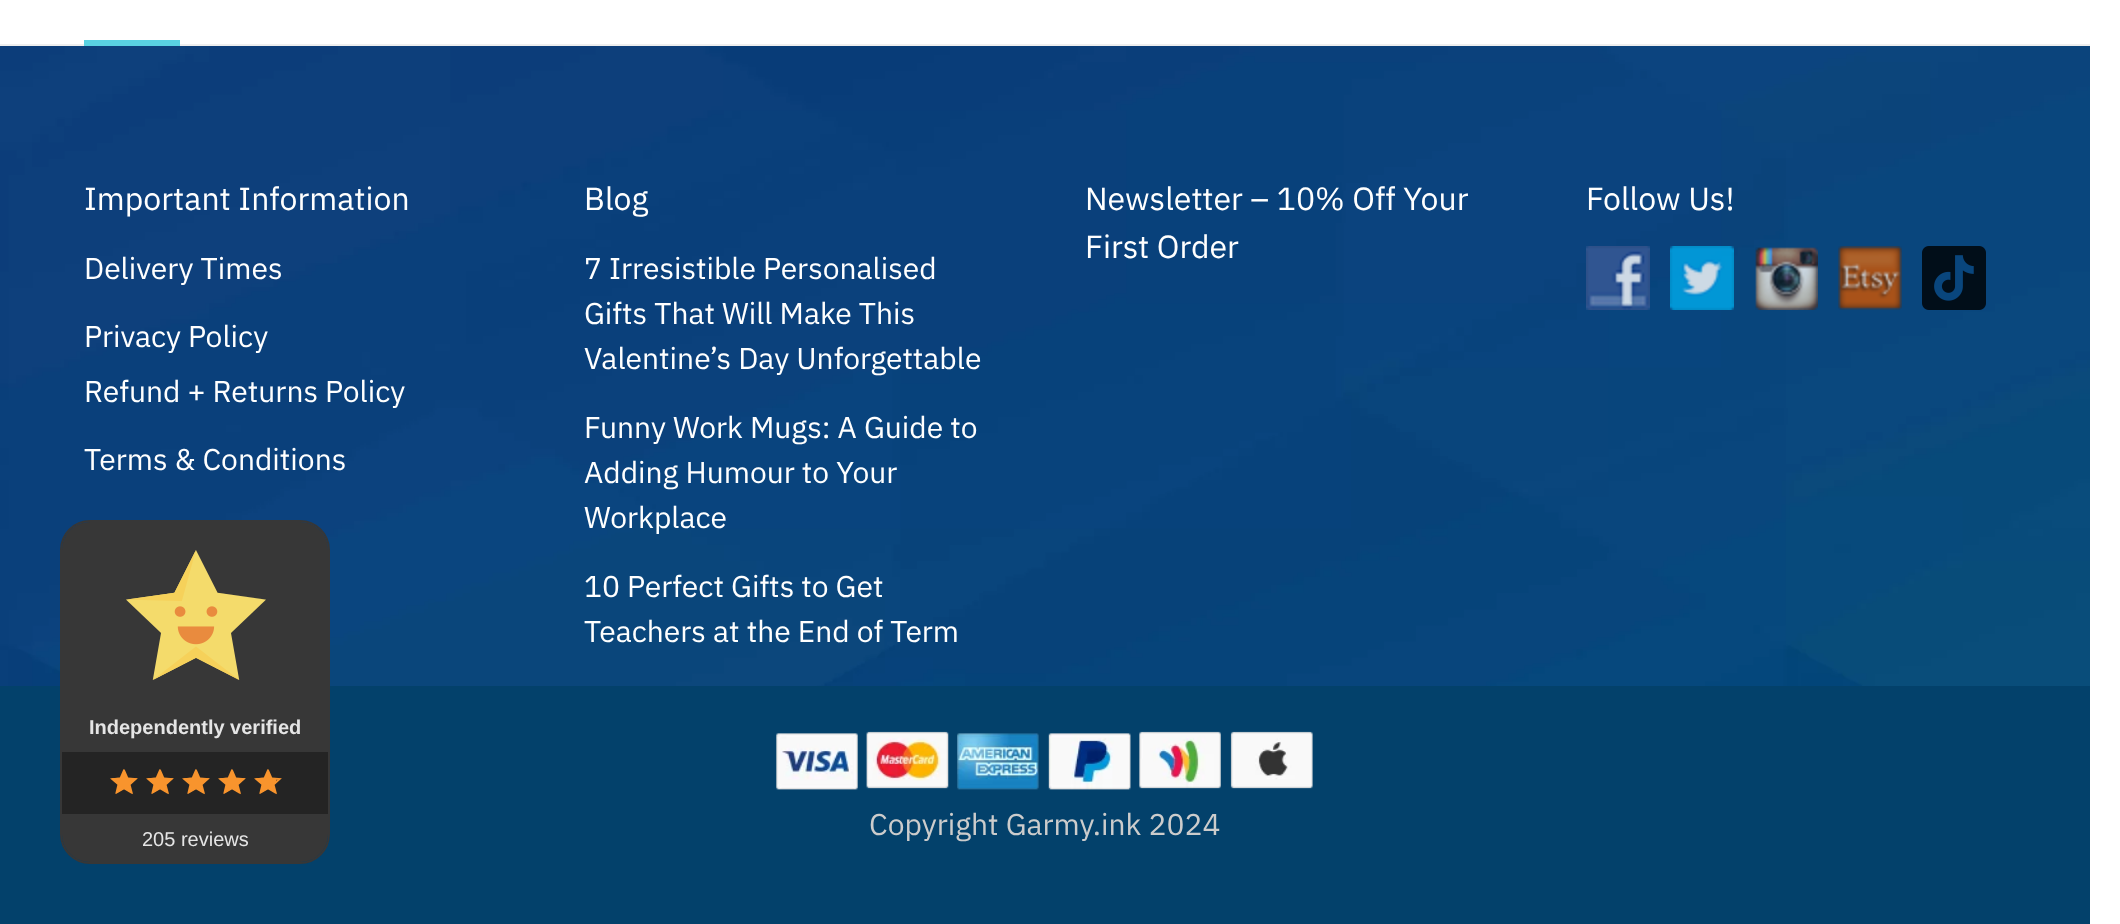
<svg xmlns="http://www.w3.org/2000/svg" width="2120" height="924">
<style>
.a{font:32px IBM Plex Sans;fill:#fff}
.b{font:30px IBM Plex Sans;fill:#fff}
.c{font:30px IBM Plex Sans;fill:#ccc}
.d{font:bold 20px Liberation Sans;fill:#e5e5e5}
.e{font:20px Liberation Sans;fill:#e5e5e5}
</style>
<rect width="100%" height="100%" fill="#fff"/>
<path fill="#eee" d="M0 44h2090v2H0z"/>
<path fill="#5ad2e2" d="M84 40h96v6H84z"/>
<image href="1.png" x="0" y="46" width="2090" height="640"/>
<image href="2.png" x="1586" y="246" width="64" height="64"/>
<image href="3.png" x="1670" y="246" width="64" height="64"/>
<image href="4.png" x="1755" y="247" width="63" height="63"/>
<image href="5.png" x="1838" y="246" width="64" height="64"/>
<image href="6.png" x="1922" y="246" width="64" height="64"/>
<path fill="#03416b" d="M0 686h2090v238H0z"/>
<image href="7.png" x="776" y="731" width="537" height="59"/>
<rect fill="none" stroke="#373737" stroke-width="2" x="61" y="521" width="268" height="342" rx="29"/>
<path fill="#373737" d="M90 522h210c15.5 0 28 12.5 28 28v202h-266v-202c0-15.5 12.5-28 28-28z"/>
<path fill="#242424" d="M62 752h266v62H62z"/>
<path fill="#373737" d="M62 814h266v20c0 15.5-12.5 28-28 28h-210c-15.5 0-28-12.5-28-28z"/>
<image href="8.png" x="126" y="550" width="140" height="130"/>
<path fill="none" stroke="#f8942d" stroke-width="2" d="M125 788h-.5l-7 4l2-7.5l-6-5.5l8-.5l3-7l3 7l8 .5l-6 5.5l2 7.5z"/>
<image href="9.png" x="110" y="769" width="27" height="25"/>
<path fill="none" stroke="#f8942d" stroke-width="2" d="M161 788h-.5l-7 4l2-7.5l-6-5.5l8-.5l3-7l3 7l8 .5l-6 5.5l2 7.5z"/>
<image href="9.png" x="146" y="769" width="27" height="25"/>
<path fill="none" stroke="#f8942d" stroke-width="2" d="M197 788h-.5l-7 4l2-7.5l-6-5.5l8-.5l3-7l3 7l8 .5l-6 5.5l2 7.5z"/>
<image href="9.png" x="182" y="769" width="27" height="25"/>
<path fill="none" stroke="#f8942d" stroke-width="2" d="M233 788h-.5l-7 4l2-7.5l-6-5.5l8-.5l3-7l3 7l8 .5l-6 5.5l2 7.5z"/>
<image href="9.png" x="218" y="769" width="27" height="25"/>
<path fill="none" stroke="#f8942d" stroke-width="2" d="M269 788h-.5l-7 4l2-7.5l-6-5.5l8-.5l3-7l3 7l8 .5l-6 5.5l2 7.5z"/>
<image href="10.png" x="254" y="769" width="22" height="25"/>
<text class="a" x="84" y="210">Important Information</text>
<text class="b" x="84" y="279">Delivery Times</text>
<text class="b" x="84" y="347">Privacy Policy</text>
<text class="b" x="84" y="402">Refund + Returns Policy</text>
<text class="b" x="84" y="470">Terms &amp; Conditions</text>
<text class="a" x="584" y="210">Blog</text>
<text class="b" x="584" y="279">7 Irresistible Personalised</text>
<text class="b" x="584" y="324">Gifts That Will Make This</text>
<text class="b" x="584" y="369">Valentine’s Day Unforgettable</text>
<text class="b" x="584" y="438">Funny Work Mugs: A Guide to</text>
<text class="b" x="584" y="483">Adding Humour to Your</text>
<text class="b" x="584" y="528">Workplace</text>
<text class="b" x="584" y="597">10 Perfect Gifts to Get</text>
<text class="b" x="584" y="642">Teachers at the End of Term</text>
<text class="a" x="1085" y="210">Newsletter – 10% Off Your</text>
<text class="a" x="1085" y="258">First Order</text>
<text class="a" x="1586" y="210">Follow Us!</text>
<text class="c" x="869" y="835">Copyright Garmy.ink 2024</text>
<text class="d" x="89" y="734">Independently verified</text>
<text class="e" x="142" y="846">205 reviews</text>
</svg>
